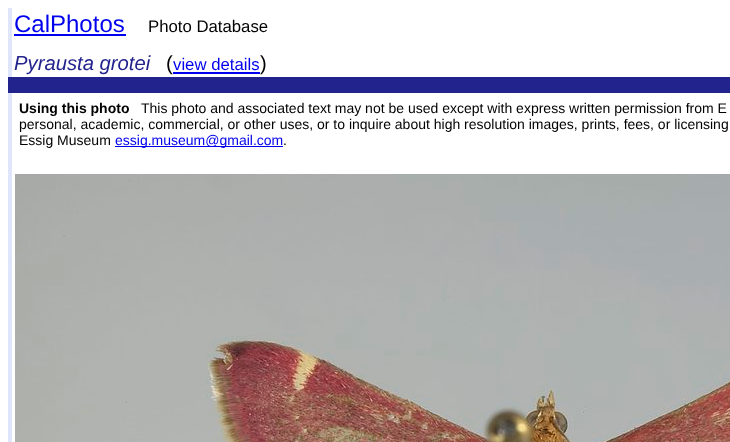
<svg xmlns="http://www.w3.org/2000/svg" width="730" height="442">
<style>
.a{font:24px Liberation Sans;fill:#00e}
.b{font:16.75px Liberation Sans;fill:#000}
.c{font:italic 20.25px Liberation Sans;fill:#23238e}
.d{font:20.25px Liberation Sans;fill:#000}
.e{font:16.75px Liberation Sans;fill:#00e}
.f{font:bold 14px Liberation Sans;fill:#000}
.g{font:14px Liberation Sans;fill:#000}
.h{font:14px Liberation Sans;fill:#00e}
</style>
<rect width="100%" height="100%" fill="#fff"/>
<path fill="#dfe5fa" d="M8 8h4v69H8z"/>
<path fill="#00e" d="M14 34h112v2H14z"/>
<path fill="#00e" d="M173 72h87v2H173z"/>
<path fill="#23238e" d="M8 77h722v16H8z"/>
<path fill="#dfe5fa" d="M8 93h4v349H8z"/>
<path fill="#00e" d="M115 146h168v1H115z"/>
<image href="1.png" x="15" y="174" width="715" height="268"/>
<text class="a" x="14" y="32">CalPhotos</text>
<text class="b" x="148" y="32">Photo Database</text>
<text class="c" x="14" y="70">Pyrausta grotei</text>
<text class="d" x="166" y="70">(</text>
<text class="e" x="173" y="70">view details</text>
<text class="d" x="260" y="70">)</text>
<text class="f" x="19" y="113">Using this photo</text>
<text class="g" x="141" y="113">This photo and associated text may not be used except with express written permission from E</text>
<text class="g" x="19" y="129">personal, academic, commercial, or other uses, or to inquire about high resolution images, prints, fees, or licensing</text>
<text class="g" x="19" y="145">Essig Museum</text>
<text class="h" x="115" y="145">essig.museum@gmail.com</text>
<text class="g" x="283" y="145">.</text>
</svg>
